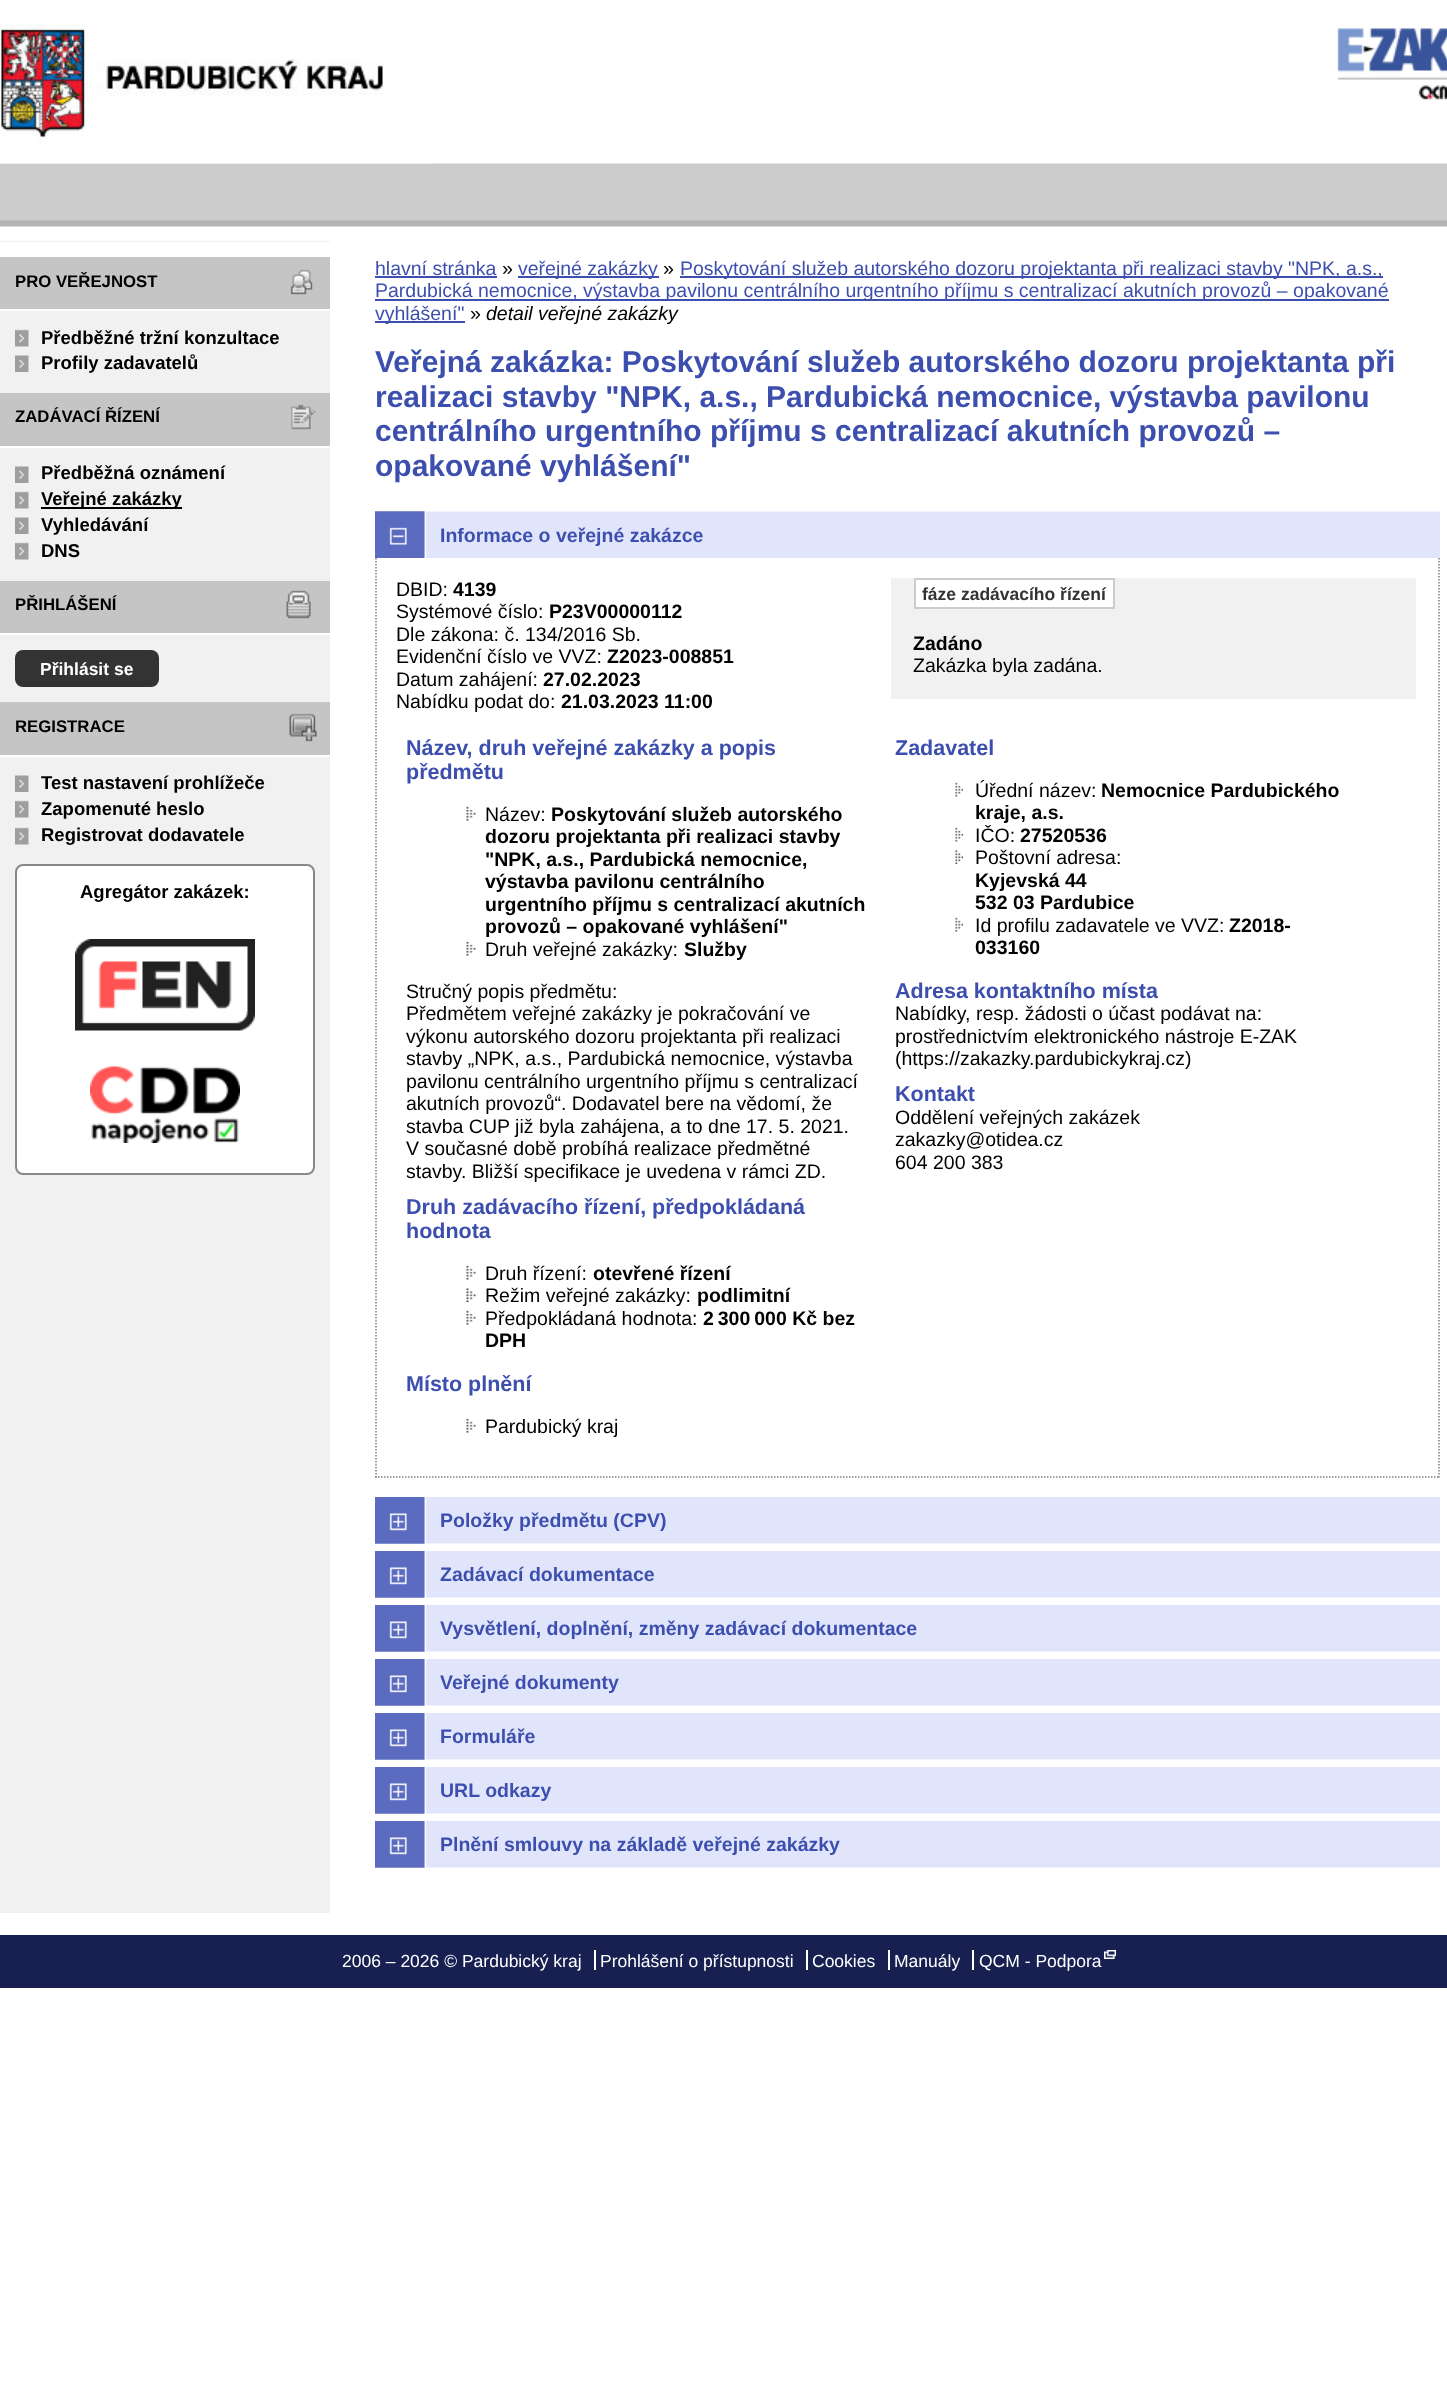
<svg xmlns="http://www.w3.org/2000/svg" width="1447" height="2385">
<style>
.a{font:bold 16.75px Liberation Sans;fill:#000}
.b{font:bold 18.5px Liberation Sans;fill:#000}
.c{font:bold 17.5px Liberation Sans;fill:#fff}
.d{font:19.5px Liberation Sans;fill:#3d4fae}
.e{font:19.5px Liberation Sans;fill:#000}
.f{font:italic 19.5px Liberation Sans;fill:#000}
.g{font:bold 30px Liberation Sans;fill:#3d4fae}
.h{font:bold 19.5px Liberation Sans;fill:#3d4fae}
.i{font:bold 19.5px Liberation Sans;fill:#000}
.j{font:bold 17.5px Liberation Sans;fill:#333}
.k{font:bold 21.5px Liberation Sans;fill:#3d4fae}
.l{font:17.5px Liberation Sans;fill:#fff}
</style>
<rect width="100%" height="100%" fill="#fff"/>
<image href="1.png" x="0" y="163" width="1447" height="64"/>
<image href="2.png" x="0" y="24" width="432" height="140"/>
<image href="3.png" x="1337" y="28" width="110" height="72"/>
<path fill="#f1f1f1" d="M0 241h330v1672H0z"/>
<path fill="#fff" d="M0 242h330v15H0z"/>
<path fill="#c5c5c5" d="M0 257h330v52H0z"/>
<image href="4.png" x="290" y="269" width="23" height="26"/>
<path fill="#fff" d="M0 309h330v2H0z"/>
<image href="5.png" x="15" y="329" width="14" height="18"/>
<image href="6.png" x="15" y="355" width="14" height="17"/>
<path fill="#c5c5c5" d="M0 393h330v53H0z"/>
<image href="7.png" x="291" y="404" width="25" height="26"/>
<path fill="#fff" d="M0 446h330v2H0z"/>
<image href="6.png" x="15" y="466" width="14" height="17"/>
<image href="5.png" x="15" y="491" width="14" height="18"/>
<path fill="#000" d="M41 507h141v2H41z"/>
<image href="6.png" x="15" y="517" width="14" height="17"/>
<image href="5.png" x="15" y="542" width="14" height="18"/>
<path fill="#c5c5c5" d="M0 581h330v52H0z"/>
<image href="8.png" x="286" y="590" width="25" height="29"/>
<path fill="#fff" d="M0 633h330v2H0z"/>
<rect fill="#333" x="15" y="650" width="144" height="37" rx="8"/>
<path fill="#c5c5c5" d="M0 702h330v53H0z"/>
<image href="9.png" x="289" y="713" width="28" height="29"/>
<path fill="#fff" d="M0 755h330v2H0z"/>
<image href="6.png" x="15" y="775" width="14" height="17"/>
<image href="5.png" x="15" y="800" width="14" height="18"/>
<image href="5.png" x="15" y="827" width="14" height="18"/>
<rect fill="#fff" stroke="#888" stroke-width="2" x="16" y="865" width="298" height="309" rx="7"/>
<image href="10.png" x="75" y="939" width="180" height="92"/>
<image href="11.png" x="90" y="1066" width="150" height="77"/>
<path fill="#3d4fae" d="M375 276h122v2H375z"/>
<path fill="#3d4fae" d="M518 276h141v2H518z"/>
<path fill="#3d4fae" d="M680 276h703v2H680z"/>
<path fill="#3d4fae" d="M375 299h1014v2H375z"/>
<path fill="#3d4fae" d="M375 321h90v2H375z"/>
<image href="12.png" x="375" y="511" width="1065" height="47"/>
<image href="13.png" x="375" y="511" width="50" height="34"/>
<path fill="none" stroke="#7f7f7f" stroke-width="1.5" stroke-dasharray="1.5 1.5" d="M1439 558v919.5"/>
<path fill="none" stroke="#7f7f7f" stroke-width="1.5" stroke-dasharray="1.5 1.5" d="M375 1477h1065"/>
<path fill="none" stroke="#7f7f7f" stroke-width="1.5" stroke-dasharray="1.5 1.5" d="M376 558v919.5"/>
<path fill="#f1f1f1" d="M891 578h525v121H891z"/>
<path fill="#fff" stroke="#ccc" stroke-width="2" d="M915 579h199v29H915z"/>
<image href="14.png" x="466" y="806" width="10" height="15"/>
<image href="14.png" x="466" y="941" width="10" height="15"/>
<image href="14.png" x="466" y="1265" width="10" height="15"/>
<image href="15.png" x="466" y="1288" width="10" height="14"/>
<image href="14.png" x="466" y="1310" width="10" height="15"/>
<image href="14.png" x="466" y="1418" width="10" height="15"/>
<image href="16.png" x="955" y="782" width="8" height="15"/>
<image href="16.png" x="955" y="827" width="8" height="15"/>
<image href="17.png" x="955" y="850" width="8" height="14"/>
<image href="16.png" x="955" y="917" width="8" height="15"/>
<image href="18.png" x="375" y="1497" width="1065" height="47"/>
<image href="19.png" x="375" y="1513" width="50" height="31"/>
<image href="18.png" x="375" y="1551" width="1065" height="47"/>
<image href="19.png" x="375" y="1567" width="50" height="31"/>
<image href="18.png" x="375" y="1605" width="1065" height="47"/>
<image href="19.png" x="375" y="1621" width="50" height="31"/>
<image href="18.png" x="375" y="1659" width="1065" height="47"/>
<image href="19.png" x="375" y="1675" width="50" height="31"/>
<image href="18.png" x="375" y="1713" width="1065" height="47"/>
<image href="19.png" x="375" y="1729" width="50" height="31"/>
<image href="18.png" x="375" y="1767" width="1065" height="47"/>
<image href="19.png" x="375" y="1783" width="50" height="31"/>
<image href="18.png" x="375" y="1821" width="1065" height="47"/>
<image href="19.png" x="375" y="1837" width="50" height="31"/>
<path fill="#172050" d="M0 1935h1447v53H0z"/>
<path fill="#fff" d="M594 1950h2v20H594z"/>
<path fill="#fff" d="M806 1950h2v20H806z"/>
<path fill="#fff" d="M888 1950h2v20H888z"/>
<path fill="#fff" d="M972 1950h2v20H972z"/>
<image href="20.png" x="1104" y="1950" width="12" height="9"/>
<text class="a" x="15" y="287">PRO VEŘEJNOST</text>
<text class="b" x="41" y="344">Předběžné tržní konzultace</text>
<text class="b" x="41" y="369">Profily zadavatelů</text>
<text class="a" x="15" y="422">ZADÁVACÍ ŘÍZENÍ</text>
<text class="b" x="41" y="479">Předběžná oznámení</text>
<text class="b" x="41" y="505">Veřejné zakázky</text>
<text class="b" x="41" y="531">Vyhledávání</text>
<text class="b" x="41" y="557">DNS</text>
<text class="a" x="15" y="610">PŘIHLÁŠENÍ</text>
<text class="c" x="40" y="675">Přihlásit se</text>
<text class="a" x="15" y="732">REGISTRACE</text>
<text class="b" x="41" y="789">Test nastavení prohlížeče</text>
<text class="b" x="41" y="815">Zapomenuté heslo</text>
<text class="b" x="41" y="841">Registrovat dodavatele</text>
<text class="b" x="80" y="898">Agregátor zakázek:</text>
<text class="d" x="375" y="275">hlavní stránka</text>
<text class="e" x="502" y="275">»</text>
<text class="d" x="518" y="275">veřejné zakázky</text>
<text class="e" x="663" y="275">»</text>
<text class="d" x="680" y="275">Poskytování služeb autorského dozoru projektanta při realizaci stavby "NPK, a.s.,</text>
<text class="d" x="375" y="297">Pardubická nemocnice, výstavba pavilonu centrálního urgentního příjmu s centralizací akutních provozů – opakované</text>
<text class="d" x="375" y="320">vyhlášení"</text>
<text class="e" x="470" y="320">»</text>
<text class="f" x="486" y="320">detail veřejné zakázky</text>
<text class="g" x="375" y="372">Veřejná zakázka: Poskytování služeb autorského dozoru projektanta při</text>
<text class="g" x="375" y="407">realizaci stavby "NPK, a.s., Pardubická nemocnice, výstavba pavilonu</text>
<text class="g" x="375" y="441">centrálního urgentního příjmu s centralizací akutních provozů –</text>
<text class="g" x="375" y="476">opakované vyhlášení"</text>
<text class="h" x="440" y="542">Informace o veřejné zakázce</text>
<text class="e" x="396" y="596">DBID:</text>
<text class="i" x="453" y="596">4139</text>
<text class="j" x="922" y="600">fáze zadávacího řízení</text>
<text class="i" x="913" y="650">Zadáno</text>
<text class="e" x="913" y="672">Zakázka byla zadána.</text>
<text class="e" x="396" y="618">Systémové číslo:</text>
<text class="i" x="549" y="618">P23V00000112</text>
<text class="e" x="396" y="641">Dle zákona: č. 134/2016 Sb.</text>
<text class="e" x="396" y="663">Evidenční číslo ve VVZ:</text>
<text class="i" x="607" y="663">Z2023-008851</text>
<text class="e" x="396" y="686">Datum zahájení:</text>
<text class="i" x="543" y="686">27.02.2023</text>
<text class="e" x="396" y="708">Nabídku podat do:</text>
<text class="i" x="561" y="708">21.03.2023 11:00</text>
<text class="k" x="406" y="755">Název, druh veřejné zakázky a popis</text>
<text class="k" x="406" y="779">předmětu</text>
<text class="e" x="485" y="821">Název:</text>
<text class="i" x="551" y="821">Poskytování služeb autorského</text>
<text class="i" x="485" y="843">dozoru projektanta při realizaci stavby</text>
<text class="i" x="485" y="866">"NPK, a.s., Pardubická nemocnice,</text>
<text class="i" x="485" y="888">výstavba pavilonu centrálního</text>
<text class="i" x="485" y="911">urgentního příjmu s centralizací akutních</text>
<text class="i" x="485" y="933">provozů – opakované vyhlášení"</text>
<text class="e" x="485" y="956">Druh veřejné zakázky:</text>
<text class="i" x="684" y="956">Služby</text>
<text class="e" x="406" y="998">Stručný popis předmětu:</text>
<text class="e" x="406" y="1020">Předmětem veřejné zakázky je pokračování ve</text>
<text class="e" x="406" y="1043">výkonu autorského dozoru projektanta při realizaci</text>
<text class="e" x="406" y="1065">stavby „NPK, a.s., Pardubická nemocnice, výstavba</text>
<text class="e" x="406" y="1088">pavilonu centrálního urgentního příjmu s centralizací</text>
<text class="e" x="406" y="1110">akutních provozů“. Dodavatel bere na vědomí, že</text>
<text class="e" x="406" y="1133">stavba CUP již byla zahájena, a to dne 17. 5. 2021.</text>
<text class="e" x="406" y="1155">V současné době probíhá realizace předmětné</text>
<text class="e" x="406" y="1178">stavby. Bližší specifikace je uvedena v rámci ZD.</text>
<text class="k" x="406" y="1214">Druh zadávacího řízení, předpokládaná</text>
<text class="k" x="406" y="1238">hodnota</text>
<text class="e" x="485" y="1280">Druh řízení:</text>
<text class="i" x="593" y="1280">otevřené řízení</text>
<text class="e" x="485" y="1302">Režim veřejné zakázky:</text>
<text class="i" x="697" y="1302">podlimitní</text>
<text class="e" x="485" y="1325">Předpokládaná hodnota:</text>
<text class="i" x="703" y="1325">2 300 000 Kč bez</text>
<text class="i" x="485" y="1347">DPH</text>
<text class="k" x="406" y="1391">Místo plnění</text>
<text class="e" x="485" y="1433">Pardubický kraj</text>
<text class="k" x="895" y="755">Zadavatel</text>
<text class="e" x="975" y="797">Úřední název:</text>
<text class="i" x="1101" y="797">Nemocnice Pardubického</text>
<text class="i" x="975" y="819">kraje, a.s.</text>
<text class="e" x="975" y="842">IČO:</text>
<text class="i" x="1020" y="842">27520536</text>
<text class="e" x="975" y="864">Poštovní adresa:</text>
<text class="i" x="975" y="887">Kyjevská 44</text>
<text class="i" x="975" y="909">532 03 Pardubice</text>
<text class="e" x="975" y="932">Id profilu zadavatele ve VVZ:</text>
<text class="i" x="1229" y="932">Z2018-</text>
<text class="i" x="975" y="954">033160</text>
<text class="k" x="895" y="998">Adresa kontaktního místa</text>
<text class="e" x="895" y="1020">Nabídky, resp. žádosti o účast podávat na:</text>
<text class="e" x="895" y="1043">prostřednictvím elektronického nástroje E-ZAK</text>
<text class="e" x="895" y="1065">(https://zakazky.pardubickykraj.cz)</text>
<text class="k" x="895" y="1101">Kontakt</text>
<text class="e" x="895" y="1124">Oddělení veřejných zakázek</text>
<text class="e" x="895" y="1146">zakazky@otidea.cz</text>
<text class="e" x="895" y="1169">604 200 383</text>
<text class="h" x="440" y="1527">Položky předmětu (CPV)</text>
<text class="h" x="440" y="1581">Zadávací dokumentace</text>
<text class="h" x="440" y="1635">Vysvětlení, doplnění, změny zadávací dokumentace</text>
<text class="h" x="440" y="1689">Veřejné dokumenty</text>
<text class="h" x="440" y="1743">Formuláře</text>
<text class="h" x="440" y="1797">URL odkazy</text>
<text class="h" x="440" y="1851">Plnění smlouvy na základě veřejné zakázky</text>
<text class="l" x="342" y="1967">2006 – 2026 © Pardubický kraj</text>
<text class="l" x="600" y="1967">Prohlášení o přístupnosti</text>
<text class="l" x="812" y="1967">Cookies</text>
<text class="l" x="894" y="1967">Manuály</text>
<text class="l" x="979" y="1967">QCM - Podpora</text>
</svg>
